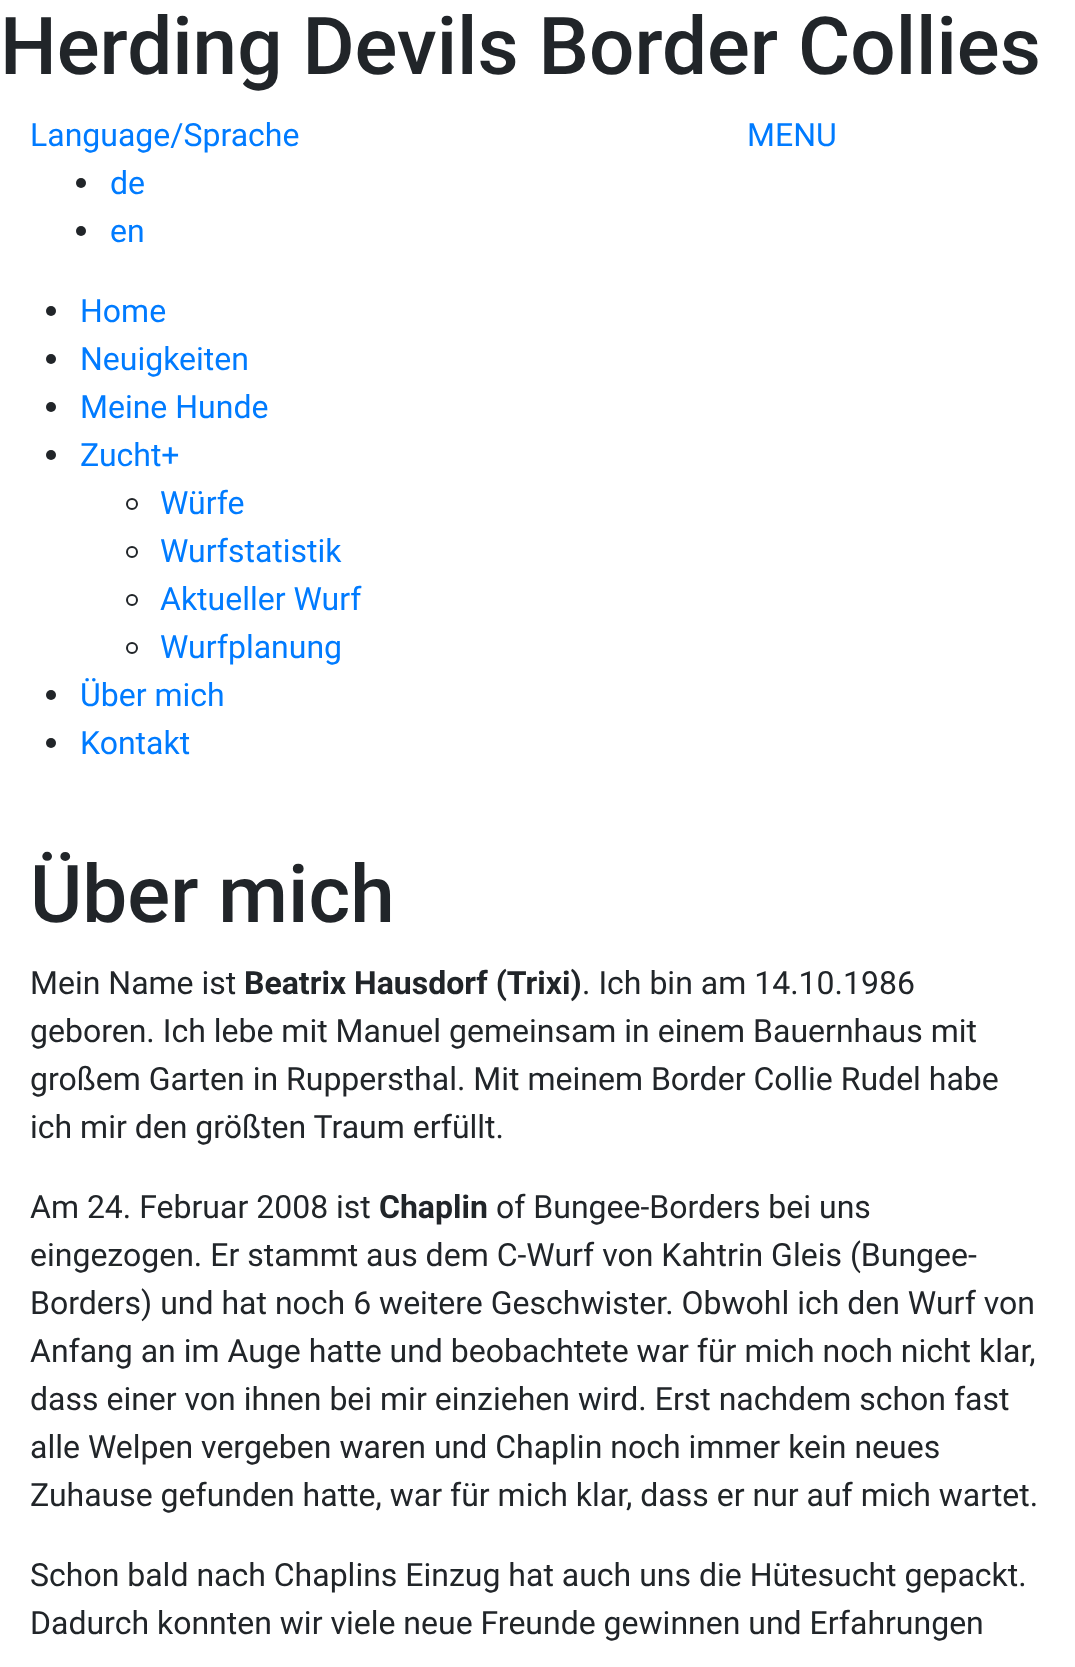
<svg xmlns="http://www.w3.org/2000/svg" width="1075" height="1667">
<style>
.a{font:500 80px Roboto;fill:#212529}
.b{font:32px Roboto;fill:#007bff}
.c{font:32px Roboto;fill:#212529}
.d{font:bold 32px Roboto;fill:#212529}
</style>
<rect width="100%" height="100%" fill="#fff"/>
<circle fill="#212529" cx="81" cy="183" r="5"/>
<circle fill="#212529" cx="81" cy="231" r="5"/>
<circle fill="#212529" cx="51" cy="311" r="5"/>
<circle fill="#212529" cx="51" cy="359" r="5"/>
<circle fill="#212529" cx="51" cy="407" r="5"/>
<circle fill="#212529" cx="51" cy="455" r="5"/>
<circle fill="none" stroke="#212529" stroke-width="2" cx="132" cy="504" r="5"/>
<circle fill="none" stroke="#212529" stroke-width="2" cx="132" cy="552" r="5"/>
<circle fill="none" stroke="#212529" stroke-width="2" cx="132" cy="600" r="5"/>
<circle fill="none" stroke="#212529" stroke-width="2" cx="132" cy="648" r="5"/>
<circle fill="#212529" cx="51" cy="695" r="5"/>
<circle fill="#212529" cx="51" cy="743" r="5"/>
<text class="a" x="0" y="74">Herding Devils Border Collies</text>
<text class="b" x="30" y="146">Language/Sprache</text>
<text class="b" x="110" y="194">de</text>
<text class="b" x="110" y="242">en</text>
<text class="b" x="747" y="146">MENU</text>
<text class="b" x="80" y="322">Home</text>
<text class="b" x="80" y="370">Neuigkeiten</text>
<text class="b" x="80" y="418">Meine Hunde</text>
<text class="b" x="80" y="466">Zucht+</text>
<text class="b" x="160" y="514">Würfe</text>
<text class="b" x="160" y="562">Wurfstatistik</text>
<text class="b" x="160" y="610">Aktueller Wurf</text>
<text class="b" x="160" y="658">Wurfplanung</text>
<text class="b" x="80" y="706">Über mich</text>
<text class="b" x="80" y="754">Kontakt</text>
<text class="a" x="30" y="922">Über mich</text>
<text class="c" x="30" y="994">Mein Name ist</text>
<text class="d" x="244" y="994">Beatrix Hausdorf (Trixi)</text>
<text class="c" x="582" y="994">. Ich bin am 14.10.1986</text>
<text class="c" x="30" y="1042">geboren. Ich lebe mit Manuel gemeinsam in einem Bauernhaus mit</text>
<text class="c" x="30" y="1090">großem Garten in Ruppersthal. Mit meinem Border Collie Rudel habe</text>
<text class="c" x="30" y="1138">ich mir den größten Traum erfüllt.</text>
<text class="c" x="30" y="1218">Am 24. Februar 2008 ist</text>
<text class="d" x="379" y="1218">Chaplin</text>
<text class="c" x="496" y="1218">of Bungee-Borders bei uns</text>
<text class="c" x="30" y="1266">eingezogen. Er stammt aus dem C-Wurf von Kahtrin Gleis (Bungee-</text>
<text class="c" x="30" y="1314">Borders) und hat noch 6 weitere Geschwister. Obwohl ich den Wurf von</text>
<text class="c" x="30" y="1362">Anfang an im Auge hatte und beobachtete war für mich noch nicht klar,</text>
<text class="c" x="30" y="1410">dass einer von ihnen bei mir einziehen wird. Erst nachdem schon fast</text>
<text class="c" x="30" y="1458">alle Welpen vergeben waren und Chaplin noch immer kein neues</text>
<text class="c" x="30" y="1506">Zuhause gefunden hatte, war für mich klar, dass er nur auf mich wartet.</text>
<text class="c" x="30" y="1586">Schon bald nach Chaplins Einzug hat auch uns die Hütesucht gepackt.</text>
<text class="c" x="30" y="1634">Dadurch konnten wir viele neue Freunde gewinnen und Erfahrungen</text>
</svg>
